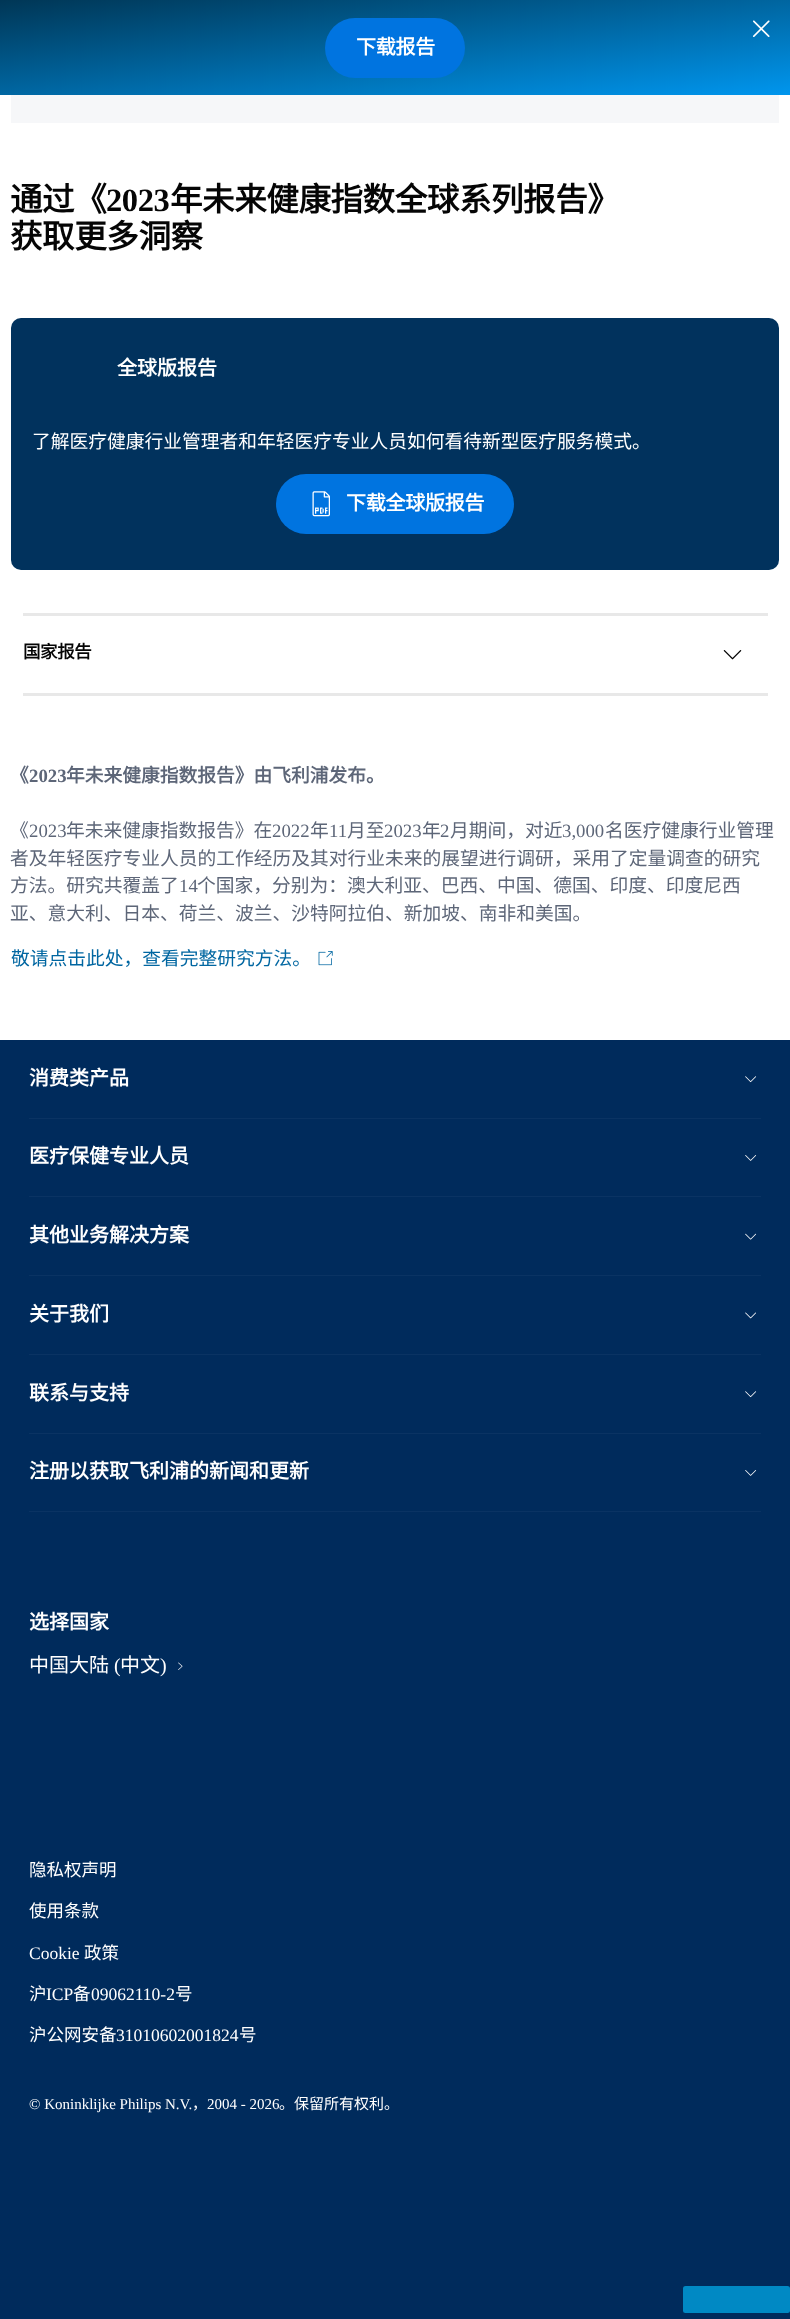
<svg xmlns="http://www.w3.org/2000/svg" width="790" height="2319">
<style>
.a{font:bold 20px Noto Sans CJK SC;letter-spacing:-0.25px;fill:#fff}
.b{font:bold 32.5px Noto Sans CJK SC;letter-spacing:-0.4px;fill:#050505}
.c{font:bold 32.5px Liberation Serif;letter-spacing:-0.4px;fill:#050505}
.d{font:bold 20px Noto Sans CJK SC;fill:#fff}
.e{font:18.75px Noto Sans CJK SC;fill:#fff}
.f{font:bold 17.5px Noto Sans CJK SC;letter-spacing:-0.4px;fill:#050505}
.g{font:bold 18.75px Noto Sans CJK SC;fill:#5d6678}
.h{font:bold 18.75px Liberation Serif;fill:#5d6678}
.i{font:18.75px Noto Sans CJK SC;fill:#5d6678}
.j{font:18.75px Liberation Serif;fill:#5d6678}
.k{font:18.75px Noto Sans CJK SC;fill:#0066a1}
.l{font:20px Noto Sans CJK SC;fill:#fff}
.m{font:20px Liberation Serif;fill:#fff}
.n{font:17.5px Noto Sans CJK SC;fill:#fff}
.o{font:17.5px Liberation Serif;fill:#fff}
.p{font:15px Liberation Serif;fill:#fff}
.q{font:15px Noto Sans CJK SC;fill:#fff}
</style>
<defs>
<linearGradient id="g1" gradientUnits="userSpaceOnUse" x1="384" y1="-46" x2="406" y2="141"><stop offset="0" stop-color="#003655"/><stop offset="0.5" stop-color="#0066a1"/><stop offset="1" stop-color="#0096ee"/></linearGradient>
</defs>
<rect width="100%" height="100%" fill="#fff"/>
<path fill="url(#g1)" d="M0 0h790v95H0z"/>
<image href="1.png" x="752" y="20" width="18" height="17"/>
<rect fill="#0074e0" x="325" y="18" width="140" height="60" rx="30"/>
<path fill="#f6f7f9" d="M11 95h768v28H11z"/>
<rect fill="#01325d" x="11" y="318" width="768" height="252" rx="10"/>
<rect fill="#0074e0" x="276" y="474" width="238" height="60" rx="30"/>
<image href="2.png" x="312" y="491" width="18" height="26"/>
<path fill="#e8e8e8" d="M23 613h745v3H23z"/>
<path fill="#e8e8e8" d="M23 693h745v3H23z"/>
<image href="3.png" x="723" y="650" width="19" height="10"/>
<image href="4.png" x="318" y="951" width="15" height="15"/>
<path fill="#002b5c" d="M0 1040h790v1279H0z"/>
<path fill="#0a3363" d="M29 1118h732v1H29z"/>
<image href="5.png" x="745" y="1076" width="12" height="7"/>
<path fill="#0a3363" d="M29 1196h732v1H29z"/>
<image href="6.png" x="745" y="1155" width="12" height="6"/>
<path fill="#0a3363" d="M29 1275h732v1H29z"/>
<image href="7.png" x="745" y="1233" width="12" height="7"/>
<path fill="#0a3363" d="M29 1354h732v1H29z"/>
<image href="8.png" x="745" y="1312" width="11" height="7"/>
<path fill="#0a3363" d="M29 1433h732v1H29z"/>
<image href="5.png" x="745" y="1391" width="12" height="7"/>
<path fill="#0a3363" d="M29 1511h732v1H29z"/>
<image href="6.png" x="745" y="1470" width="12" height="6"/>
<image href="9.png" x="178" y="1662" width="5" height="8"/>
<rect fill="#0089c4" x="683" y="2286" width="107" height="27" rx="2.5"/>
<text class="a" x="356" y="54">下载报告</text>
<text class="b" x="10" y="211">通过《</text>
<text class="c" x="106" y="211">2023</text>
<text class="b" x="170" y="211">年未来健康指数全球系列报告》</text>
<text class="b" x="10" y="248">获取更多洞察</text>
<text class="d" x="117" y="375">全球版报告</text>
<text class="e" x="32" y="448">了解医疗健康行业管理者和年轻医疗专业人员如何看待新型医疗服务模式。</text>
<text class="a" x="346" y="510">下载全球版报告</text>
<text class="f" x="23" y="658">国家报告</text>
<text class="g" x="10" y="782">《</text>
<text class="h" x="29" y="782">2023</text>
<text class="g" x="66" y="782">年未来健康指数报告》由飞利浦发布。</text>
<text class="i" x="10" y="837">《</text>
<text class="j" x="29" y="837">2023</text>
<text class="i" x="66" y="837">年未来健康指数报告》在</text>
<text class="j" x="272" y="837">2022</text>
<text class="i" x="310" y="837">年</text>
<text class="j" x="329" y="837">11</text>
<text class="i" x="347" y="837">月至</text>
<text class="j" x="384" y="837">2023</text>
<text class="i" x="422" y="837">年</text>
<text class="j" x="440" y="837">2</text>
<text class="i" x="450" y="837">月期间，对近</text>
<text class="j" x="562" y="837">3,000</text>
<text class="i" x="605" y="837">名医疗健康行业管理</text>
<text class="i" x="10" y="865">者及年轻医疗专业人员的工作经历及其对行业未来的展望进行调研，采用了定量调查的研究</text>
<text class="i" x="10" y="892">方法。研究共覆盖了</text>
<text class="j" x="179" y="892">14</text>
<text class="i" x="197" y="892">个国家，分别为：澳大利亚、巴西、中国、德国、印度、印度尼西</text>
<text class="i" x="10" y="920">亚、意大利、日本、荷兰、波兰、沙特阿拉伯、新加坡、南非和美国。</text>
<text class="k" x="11" y="965">敬请点击此处，查看完整研究方法。</text>
<text class="d" x="29" y="1085">消费类产品</text>
<text class="d" x="29" y="1163">医疗保健专业人员</text>
<text class="d" x="29" y="1242">其他业务解决方案</text>
<text class="d" x="29" y="1321">关于我们</text>
<text class="d" x="29" y="1400">联系与支持</text>
<text class="d" x="29" y="1478">注册以获取飞利浦的新闻和更新</text>
<text class="d" x="29" y="1629">选择国家</text>
<text class="l" x="29" y="1672">中国大陆</text>
<text class="m" x="114" y="1672">(</text>
<text class="l" x="120" y="1672">中文</text>
<text class="m" x="160" y="1672">)</text>
<text class="n" x="29" y="1876">隐私权声明</text>
<text class="n" x="29" y="1917">使用条款</text>
<text class="o" x="29" y="1959">Cookie</text>
<text class="n" x="84" y="1959">政策</text>
<text class="n" x="29" y="2000">沪</text>
<text class="o" x="46" y="2000">ICP</text>
<text class="n" x="73" y="2000">备</text>
<text class="o" x="91" y="2000">09062110-2</text>
<text class="n" x="175" y="2000">号</text>
<text class="n" x="29" y="2041">沪公网安备</text>
<text class="o" x="116" y="2041">31010602001824</text>
<text class="n" x="239" y="2041">号</text>
<text class="p" x="29" y="2109">© Koninklijke Philips N.V.</text>
<text class="q" x="192" y="2109">，</text>
<text class="p" x="207" y="2109">2004 - 2026</text>
<text class="q" x="279" y="2109">。保留所有权利。</text>
</svg>
